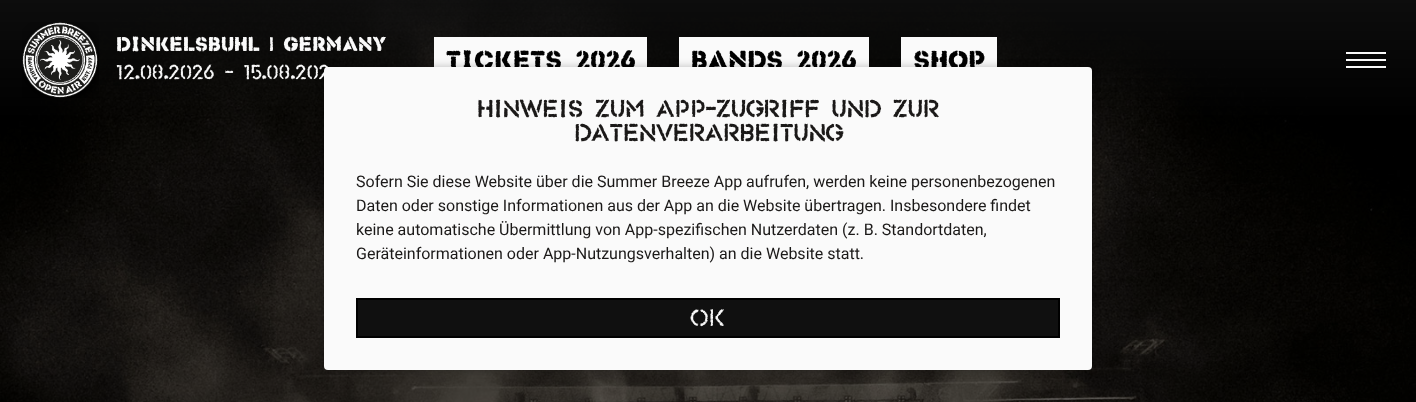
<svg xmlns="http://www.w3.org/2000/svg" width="1416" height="402">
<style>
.a{font:bold 20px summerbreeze;fill:#fafafa}
.b{font:300 20px summerbreeze;fill:#fafafa}
.c{font:bold 26px summerbreeze;fill:#000}
.d{font:bold 23.4px 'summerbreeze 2';fill:#1b1918}
.e{font:16px Roboto;fill:#1b1918}
.f{font:300 24px summerbreeze;fill:#fafafa}
</style>
<defs>
<clipPath id="clip1"><path d="M116 36h270v20H116z"/></clipPath>
</defs>
<rect width="100%" height="100%" fill="#fff"/>
<image href="1.png" x="0" y="0" width="1416" height="402"/>
<image href="2.png" x="22" y="22" width="77" height="76"/>
<path fill="#fafafa" d="M434 37h213v30H434z"/>
<path fill="#fafafa" d="M679 37h190v30H679z"/>
<path fill="#fafafa" d="M901 37h96v30H901z"/>
<path fill="#fafafa" d="M1346 52h40v2H1346z"/>
<path fill="#fafafa" d="M1346 59h40v2H1346z"/>
<path fill="#fafafa" d="M1346 66h40v2H1346z"/>
<rect fill="#00000040" filter="blur(4px)" x="324" y="67" width="768" height="303" rx="4"/>
<g clip-path="url(#clip1)">
<text class="a" x="116" y="51">Dinkelsbühl | Germany</text>
</g>
<text class="b" x="116" y="79">12.08.2026 - 15.08.202</text>
<text class="c" x="446" y="69">TICKETS 2026</text>
<text class="c" x="691" y="69">BANDS 2026</text>
<text class="c" x="913" y="69">SHOP</text>
<rect fill="#fafafa" x="324" y="67" width="768" height="303" rx="4"/>
<text class="d" x="477" y="117">Hinweis zum App-Zugriff und zur</text>
<text class="d" x="574" y="141">Datenverarbeitung</text>
<text class="e" x="356" y="187">Sofern Sie diese Website über die Summer Breeze App aufrufen, werden keine personenbezogenen</text>
<text class="e" x="356" y="211">Daten oder sonstige Informationen aus der App an die Website übertragen. Insbesondere findet</text>
<text class="e" x="356" y="235">keine automatische Übermittlung von App-spezifischen Nutzerdaten (z. B. Standortdaten,</text>
<text class="e" x="356" y="259">Geräteinformationen oder App-Nutzungsverhalten) an die Website statt.</text>
<path fill="#101010" stroke="#000" stroke-width="2" d="M357 299h702v38H357z"/>
<text class="f" x="690" y="326">OK</text>
</svg>
